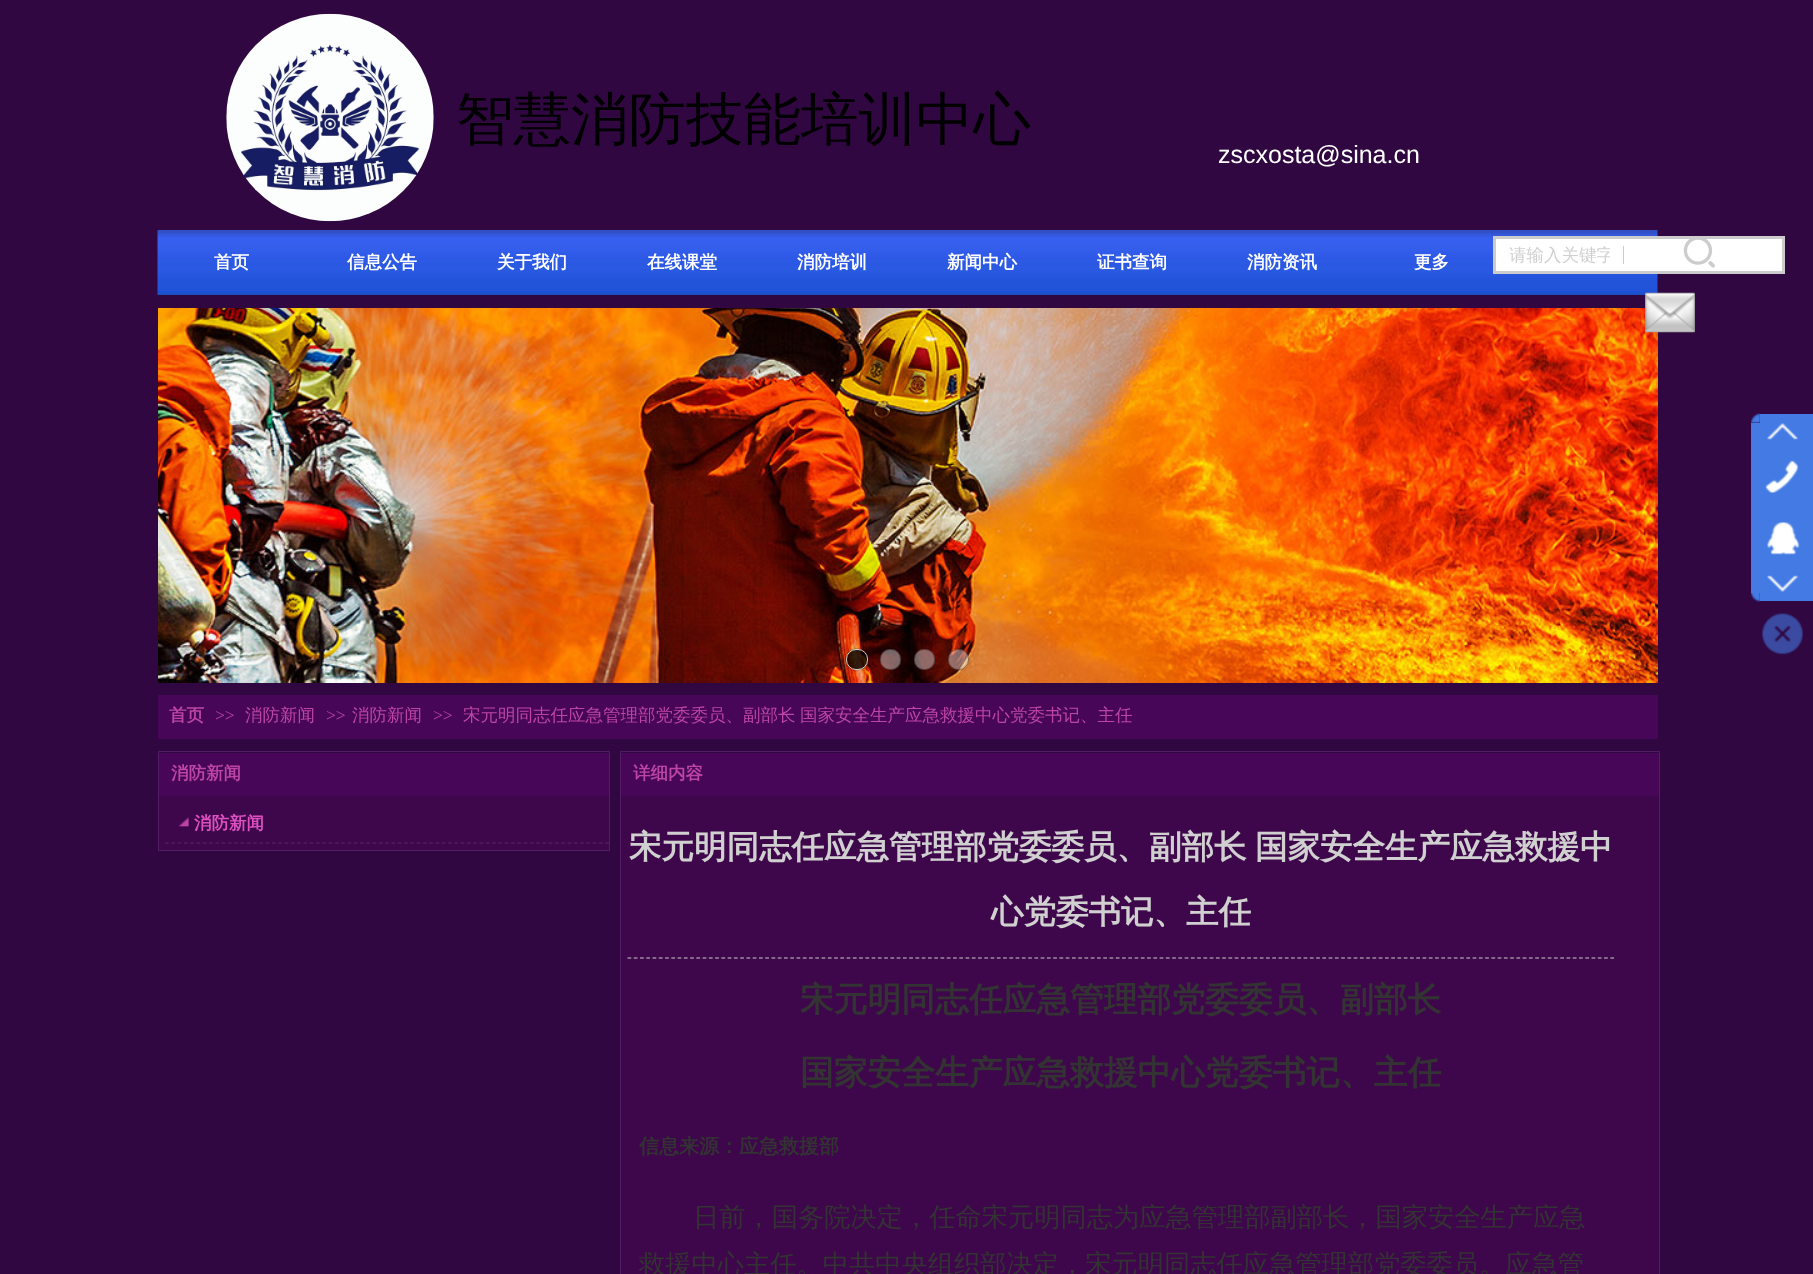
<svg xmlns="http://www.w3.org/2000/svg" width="1813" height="1274">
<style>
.a{font:500 57.5px WenQuanYi Zen Hei;fill:#000}
.b{font:25px Liberation Sans;fill:#fff}
.c{font:500 17.5px WenQuanYi Zen Hei;fill:#d0d0d0}
.d{font:bold 17.5px WenQuanYi Zen Hei;fill:#fff}
.e{font:bold 17.5px WenQuanYi Zen Hei;fill:#bd45a6}
.f{font:17.5px Liberation Serif;fill:#bd45a6}
.g{font:500 17.5px WenQuanYi Zen Hei;fill:#bd45a6}
.h{font:bold 17.5px WenQuanYi Zen Hei;fill:#de50c1}
.i{font:bold 32.5px WenQuanYi Zen Hei;fill:#d0d0d0}
.j{font:bold 33.75px WenQuanYi Zen Hei;fill:#333}
.k{font:bold 20px WenQuanYi Zen Hei;fill:#333}
.l{font:500 26.25px WenQuanYi Zen Hei;fill:#333}
</style>
<defs>
<clipPath id="clip1"><path d="M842 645h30v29h-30zm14 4h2c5.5 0 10 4.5 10 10v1c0 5.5-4.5 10-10 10h-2c-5.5 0-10-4.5-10-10v-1c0-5.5 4.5-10 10-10z" clip-rule="evenodd"/></clipPath>
<clipPath id="clip2"><path d="M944 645h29v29h-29zm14 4h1c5.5 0 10 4.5 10 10v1c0 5.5-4.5 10-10 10h-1c-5.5 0-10-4.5-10-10v-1c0-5.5 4.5-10 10-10z" clip-rule="evenodd"/></clipPath>
<clipPath id="clip3"><path d="M165 803h444v41H165z"/></clipPath>
<clipPath id="clip4"><path d="M1510 245h100v23H1510z"/></clipPath>
</defs>
<rect width="100%" height="100%" fill="#300741"/>
<image href="1.png" x="226" y="13" width="208" height="209"/>
<image href="4.png" x="157" y="230" width="1501" height="65"/>
<path fill="#fff" stroke="#ccc" stroke-width="3" d="M1494.5 237.5h289v35H1494.5z"/>
<path fill="#ccc" d="M1623 246h1v18H1623z"/>
<image href="2.png" x="1683" y="239" width="32" height="29"/>
<image href="5.png" x="158" y="308" width="1500" height="375"/>
<image href="3.png" x="1645" y="292" width="50" height="41"/>
<g clip-path="url(#clip1)">
<rect fill="#0000007a" filter="blur(1px)" x="846" y="649" width="22" height="21" rx="10"/>
</g>
<rect fill="#000000cc" x="846" y="649" width="22" height="21" rx="10"/>
<rect fill="none" stroke="#ffffffcc" x="846.5" y="649.5" width="21" height="20" rx="9.5"/>
<rect fill="#ffffff66" x="880" y="649" width="21" height="21" rx="10"/>
<rect fill="none" stroke="#00000066" x="880.5" y="649.5" width="20" height="20" rx="9.5"/>
<rect fill="#ffffff66" x="914" y="649" width="21" height="21" rx="10"/>
<rect fill="none" stroke="#00000066" x="914.5" y="649.5" width="20" height="20" rx="9.5"/>
<g clip-path="url(#clip2)">
<rect fill="#0000003d" filter="blur(1px)" x="948" y="649" width="21" height="21" rx="10"/>
</g>
<rect fill="#ffffff66" x="948" y="649" width="21" height="21" rx="10"/>
<rect fill="none" stroke="#00000066" x="948.5" y="649.5" width="20" height="20" rx="9.5"/>
<image href="6.png" x="1751" y="413" width="10" height="10"/>
<path fill="#437ae3" d="M1760 414h53v9H1760z"/>
<path fill="#437ae3" d="M1751 423h62v170H1751z"/>
<image href="7.png" x="1767" y="423" width="32" height="17"/>
<image href="8.png" x="1765" y="460" width="34" height="33"/>
<image href="9.png" x="1767" y="522" width="33" height="33"/>
<image href="10.png" x="1767" y="575" width="32" height="17"/>
<image href="11.png" x="1751" y="593" width="10" height="9"/>
<path fill="#437ae3" d="M1760 593h53v8H1760z"/>
<image href="12.png" x="1762" y="613" width="41" height="42"/>
<path fill="#470658" d="M158 695h1500v44H158z"/>
<path fill="none" stroke="#521d63" d="M158.5 751.5h451v99H158.5z"/>
<path fill="#470658" d="M159 753h450v43H159z"/>
<path fill="#3e074b" d="M159 796h450v54H159z"/>
<g clip-path="url(#clip3)">
<path fill="none" stroke="#592768" stroke-width="1.2" stroke-dasharray="3.75 2.54" d="M165 843h450"/>
</g>
<image href="13.png" x="178" y="817" width="11" height="10"/>
<path fill="none" stroke="#521d63" d="M620.5 751.5h1039v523H620.5z"/>
<path fill="#470658" d="M621 753h1038v43H621z"/>
<path fill="#3e074b" d="M621 796h1038v478H621z"/>
<path fill="none" stroke="#ccc" stroke-width="1.2" stroke-dasharray="3.75 2.51" d="M627.5 958h987.5"/>
<text class="a" x="456" y="139">智慧消防技能培训中心</text>
<text class="b" x="1218" y="163">zscxosta@sina.cn</text>
<g clip-path="url(#clip4)">
<text class="c" x="1509" y="261">请输入关键字</text>
</g>
<text class="d" x="214" y="268">首页</text>
<text class="d" x="347" y="268">信息公告</text>
<text class="d" x="497" y="268">关于我们</text>
<text class="d" x="647" y="268">在线课堂</text>
<text class="d" x="797" y="268">消防培训</text>
<text class="d" x="947" y="268">新闻中心</text>
<text class="d" x="1097" y="268">证书查询</text>
<text class="d" x="1247" y="268">消防资讯</text>
<text class="d" x="1414" y="268">更多</text>
<text class="e" x="169" y="721">首页</text>
<text class="f" x="215" y="721">&gt;&gt;</text>
<text class="g" x="245" y="721">消防新闻</text>
<text class="f" x="326" y="721">&gt;&gt;</text>
<text class="g" x="352" y="721">消防新闻</text>
<text class="f" x="433" y="721">&gt;&gt;</text>
<text class="g" x="463" y="721">宋元明同志任应急管理部党委委员、副部长</text>
<text class="g" x="800" y="721">国家安全生产应急救援中心党委书记、主任</text>
<text class="e" x="171" y="779">消防新闻</text>
<text class="h" x="194" y="829">消防新闻</text>
<text class="e" x="633" y="779">详细内容</text>
<text class="i" x="629" y="858">宋元明同志任应急管理部党委委员、副部长</text>
<text class="i" x="1255" y="858">国家安全生产应急救援中</text>
<text class="i" x="991" y="923">心党委书记、主任</text>
<text class="j" x="800" y="1011">宋元明同志任应急管理部党委委员、副部长</text>
<text class="j" x="800" y="1084">国家安全生产应急救援中心党委书记、主任</text>
<text class="k" x="639" y="1153">信息来源：应急救援部</text>
<text class="l" x="693" y="1226">日前，国务院决定，任命宋元明同志为应急管理部副部长，国家安全生产应急</text>
<text class="l" x="639" y="1273">救援中心主任。中共中央组织部决定，宋元明同志任应急管理部党委委员。应急管</text>
</svg>
